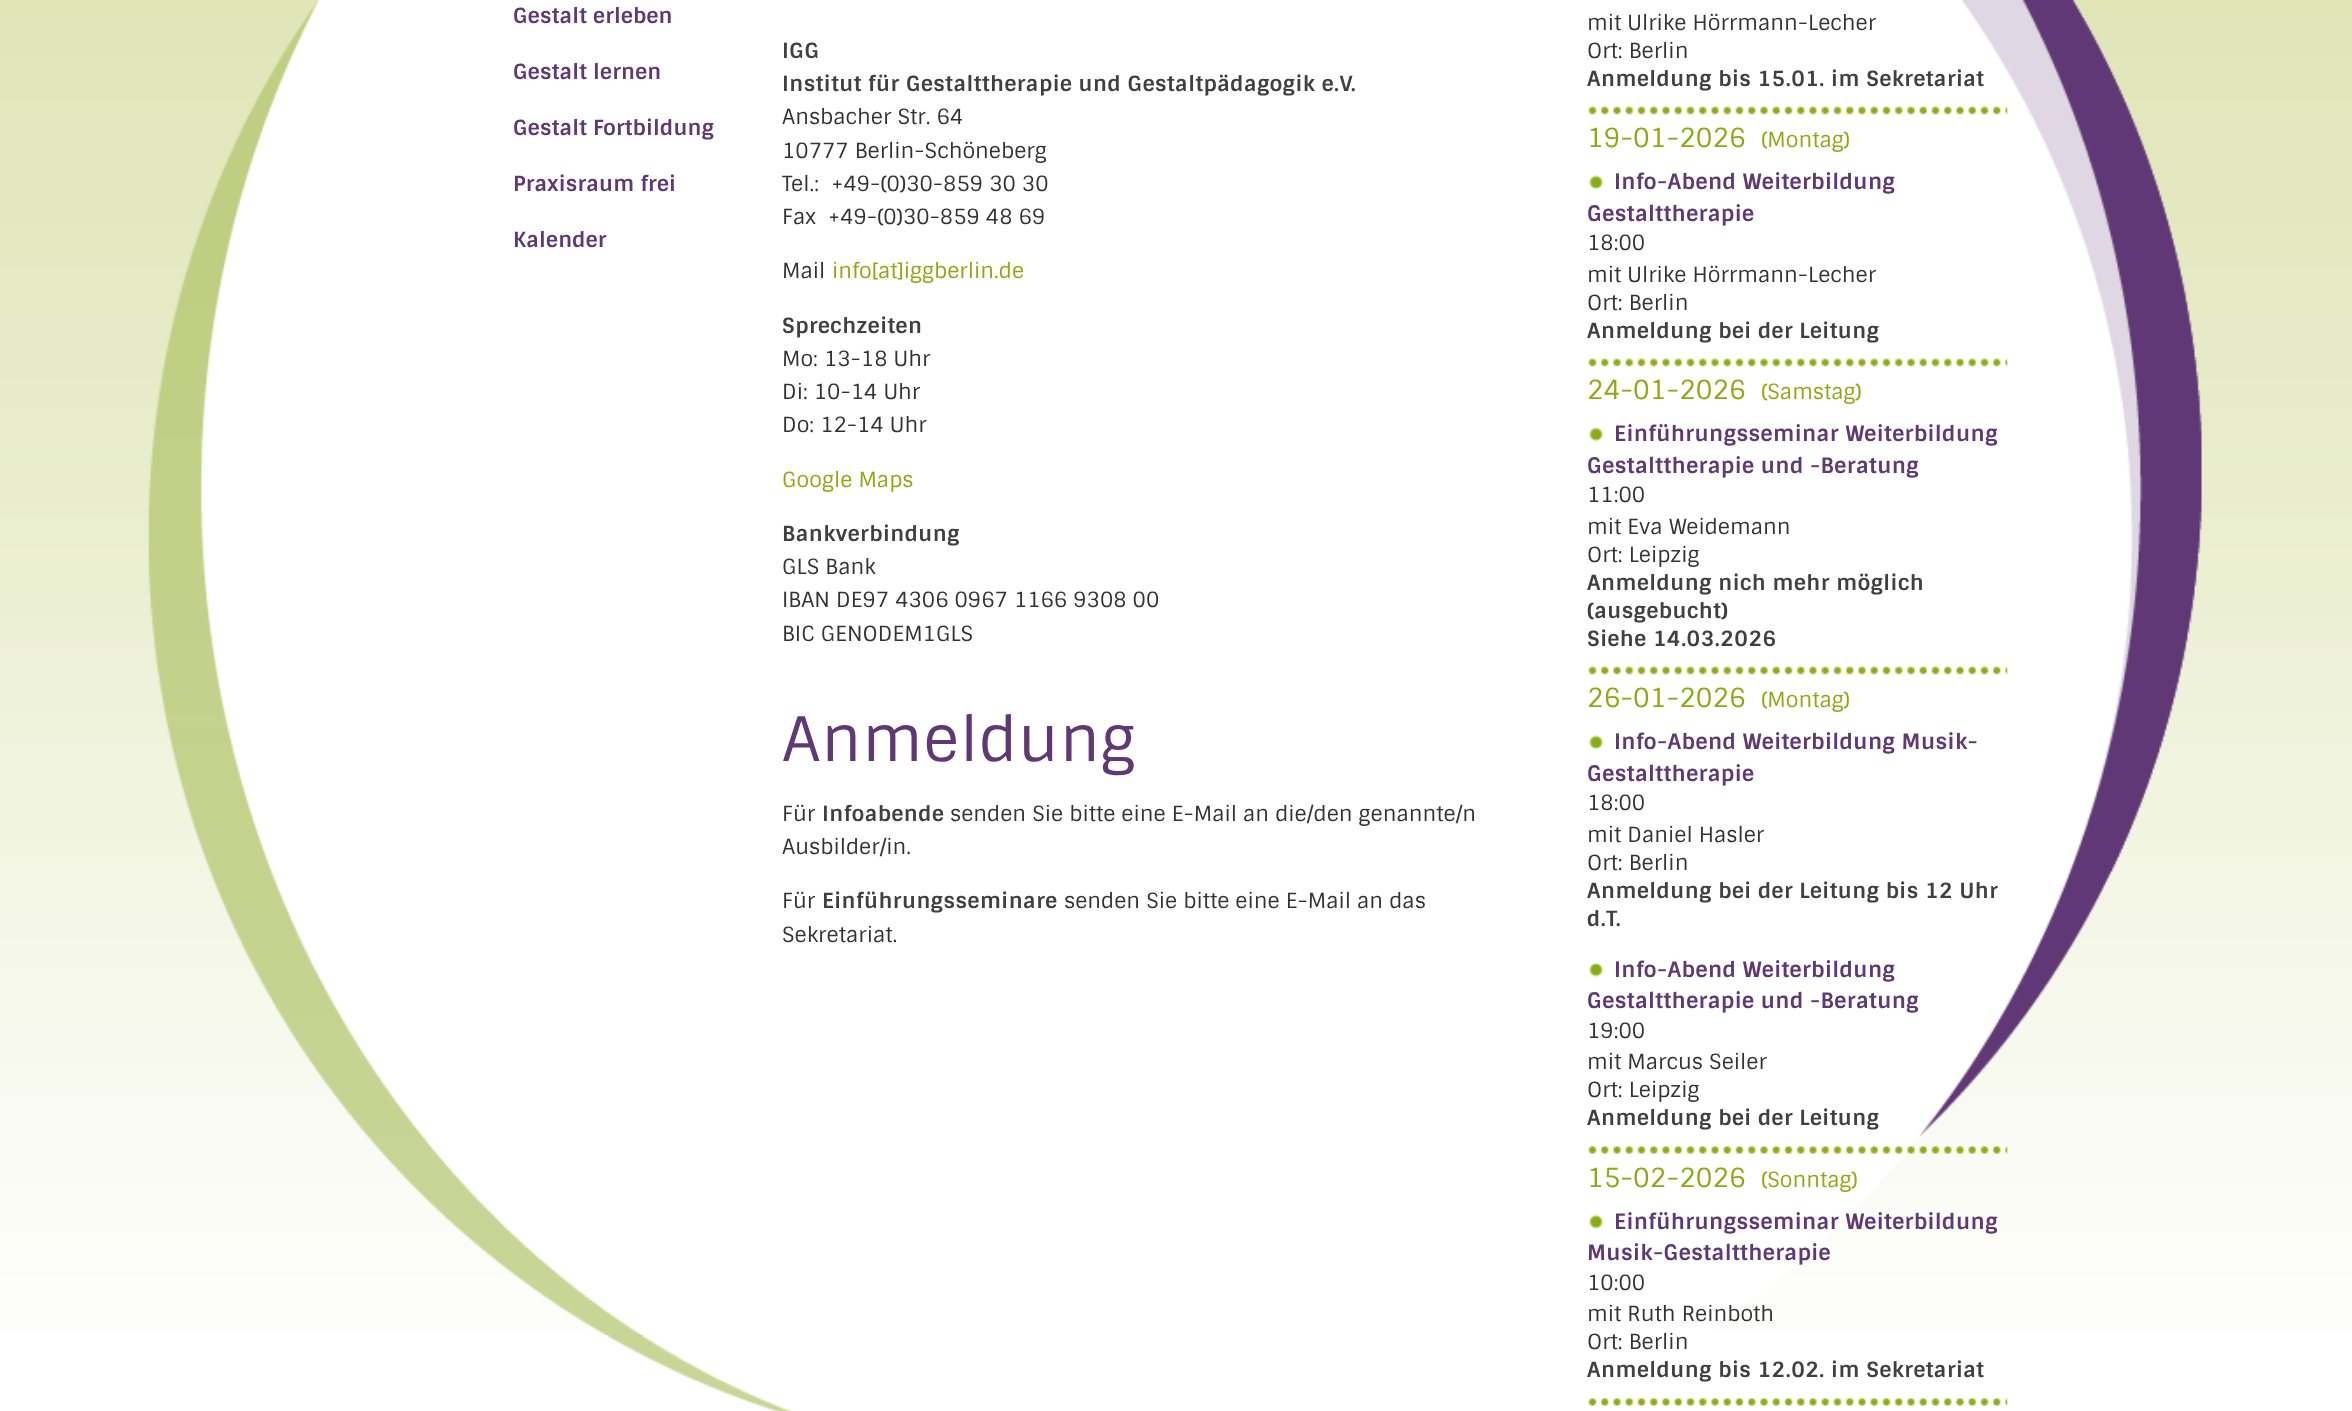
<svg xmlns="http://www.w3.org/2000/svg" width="2352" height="1411">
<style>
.a{font:bold 21px Sintony;letter-spacing:0.25px;fill:#5f3875}
.b{font:bold 21px Sintony;letter-spacing:0.53px;fill:#404040}
.c{font:21px Sintony;fill:#333}
.d{font:21px Sintony;fill:#8aac10}
.e{font:61.25px Sintony;letter-spacing:0.9px;fill:#5f3875}
.f{font:26.25px Sintony;fill:#8aac10}
.g{font:bold 21.4px Sintony;letter-spacing:0.4px;fill:#5f3875}
</style>
<rect width="100%" height="100%" fill="#fff"/>
<image href="1.png" x="0" y="0" width="2352" height="1330"/>
<image href="2.png" x="148" y="0" width="2054" height="1411"/>
<image href="3.png" x="1588" y="106" width="420" height="9"/>
<image href="4.png" x="1588" y="175" width="16" height="15"/>
<image href="3.png" x="1588" y="358" width="420" height="9"/>
<image href="4.png" x="1588" y="427" width="16" height="15"/>
<image href="3.png" x="1588" y="666" width="420" height="9"/>
<image href="4.png" x="1588" y="735" width="16" height="15"/>
<image href="5.png" x="1588" y="962" width="16" height="16"/>
<image href="6.png" x="1588" y="1146" width="420" height="8"/>
<image href="5.png" x="1588" y="1214" width="16" height="16"/>
<image href="7.png" x="1588" y="1398" width="420" height="8"/>
<text class="a" x="513" y="23">Gestalt erleben</text>
<text class="a" x="513" y="79">Gestalt lernen</text>
<text class="a" x="513" y="135">Gestalt Fortbildung</text>
<text class="a" x="513" y="191">Praxisraum frei</text>
<text class="a" x="513" y="247">Kalender</text>
<text class="b" x="782" y="58">IGG</text>
<text class="b" x="782" y="91">Institut für Gestalttherapie und Gestaltpädagogik e.V.</text>
<text class="c" x="782" y="124">Ansbacher Str. 64</text>
<text class="c" x="782" y="158">10777 Berlin-Schöneberg</text>
<text class="c" xml:space="preserve" x="782" y="191">Tel.:  +49-(0)30-859 30 30</text>
<text class="c" xml:space="preserve" x="782" y="224">Fax  +49-(0)30-859 48 69</text>
<text class="c" x="782" y="278">Mail</text>
<text class="d" x="832" y="278">info[at]iggberlin.de</text>
<text class="b" x="782" y="333">Sprechzeiten</text>
<text class="c" x="782" y="366">Mo: 13-18 Uhr</text>
<text class="c" x="782" y="399">Di: 10-14 Uhr</text>
<text class="c" x="782" y="432">Do: 12-14 Uhr</text>
<text class="d" x="782" y="487">Google Maps</text>
<text class="b" x="782" y="541">Bankverbindung</text>
<text class="c" x="782" y="574">GLS Bank</text>
<text class="c" x="782" y="607">IBAN DE97 4306 0967 1166 9308 00</text>
<text class="c" x="782" y="641">BIC GENODEM1GLS</text>
<text class="e" x="782" y="761">Anmeldung</text>
<text class="c" x="782" y="821">Für</text>
<text class="b" x="822" y="821">Infoabende</text>
<text class="c" x="950" y="821">senden Sie bitte eine E-Mail an die/den genannte/n</text>
<text class="c" x="782" y="854">Ausbilder/in.</text>
<text class="c" x="782" y="908">Für</text>
<text class="b" x="822" y="908">Einführungsseminare</text>
<text class="c" x="1064" y="908">senden Sie bitte eine E-Mail an das</text>
<text class="c" x="782" y="942">Sekretariat.</text>
<text class="c" x="1587" y="30">mit Ulrike Hörrmann-Lecher</text>
<text class="c" x="1587" y="58">Ort: Berlin</text>
<text class="b" x="1587" y="86">Anmeldung bis 15.01. im Sekretariat</text>
<text class="f" x="1587" y="147">19-01-2026</text>
<text class="d" x="1761" y="147">(Montag)</text>
<text class="g" x="1614" y="189">Info-Abend Weiterbildung</text>
<text class="g" x="1587" y="221">Gestalttherapie</text>
<text class="c" x="1587" y="250">18:00</text>
<text class="c" x="1587" y="282">mit Ulrike Hörrmann-Lecher</text>
<text class="c" x="1587" y="310">Ort: Berlin</text>
<text class="b" x="1587" y="338">Anmeldung bei der Leitung</text>
<text class="f" x="1587" y="399">24-01-2026</text>
<text class="d" x="1761" y="399">(Samstag)</text>
<text class="g" x="1614" y="441">Einführungsseminar Weiterbildung</text>
<text class="g" x="1587" y="473">Gestalttherapie und -Beratung</text>
<text class="c" x="1587" y="502">11:00</text>
<text class="c" x="1587" y="534">mit Eva Weidemann</text>
<text class="c" x="1587" y="562">Ort: Leipzig</text>
<text class="b" x="1587" y="590">Anmeldung nich mehr möglich</text>
<text class="b" x="1587" y="618">(ausgebucht)</text>
<text class="b" x="1587" y="646">Siehe 14.03.2026</text>
<text class="f" x="1587" y="707">26-01-2026</text>
<text class="d" x="1761" y="707">(Montag)</text>
<text class="g" x="1614" y="749">Info-Abend Weiterbildung Musik-</text>
<text class="g" x="1587" y="781">Gestalttherapie</text>
<text class="c" x="1587" y="810">18:00</text>
<text class="c" x="1587" y="842">mit Daniel Hasler</text>
<text class="c" x="1587" y="870">Ort: Berlin</text>
<text class="b" x="1587" y="898">Anmeldung bei der Leitung bis 12 Uhr</text>
<text class="b" x="1587" y="926">d.T.</text>
<text class="g" x="1614" y="977">Info-Abend Weiterbildung</text>
<text class="g" x="1587" y="1008">Gestalttherapie und -Beratung</text>
<text class="c" x="1587" y="1038">19:00</text>
<text class="c" x="1587" y="1069">mit Marcus Seiler</text>
<text class="c" x="1587" y="1097">Ort: Leipzig</text>
<text class="b" x="1587" y="1125">Anmeldung bei der Leitung</text>
<text class="f" x="1587" y="1187">15-02-2026</text>
<text class="d" x="1761" y="1187">(Sonntag)</text>
<text class="g" x="1614" y="1229">Einführungsseminar Weiterbildung</text>
<text class="g" x="1587" y="1260">Musik-Gestalttherapie</text>
<text class="c" x="1587" y="1290">10:00</text>
<text class="c" x="1587" y="1321">mit Ruth Reinboth</text>
<text class="c" x="1587" y="1349">Ort: Berlin</text>
<text class="b" x="1587" y="1377">Anmeldung bis 12.02. im Sekretariat</text>
</svg>
